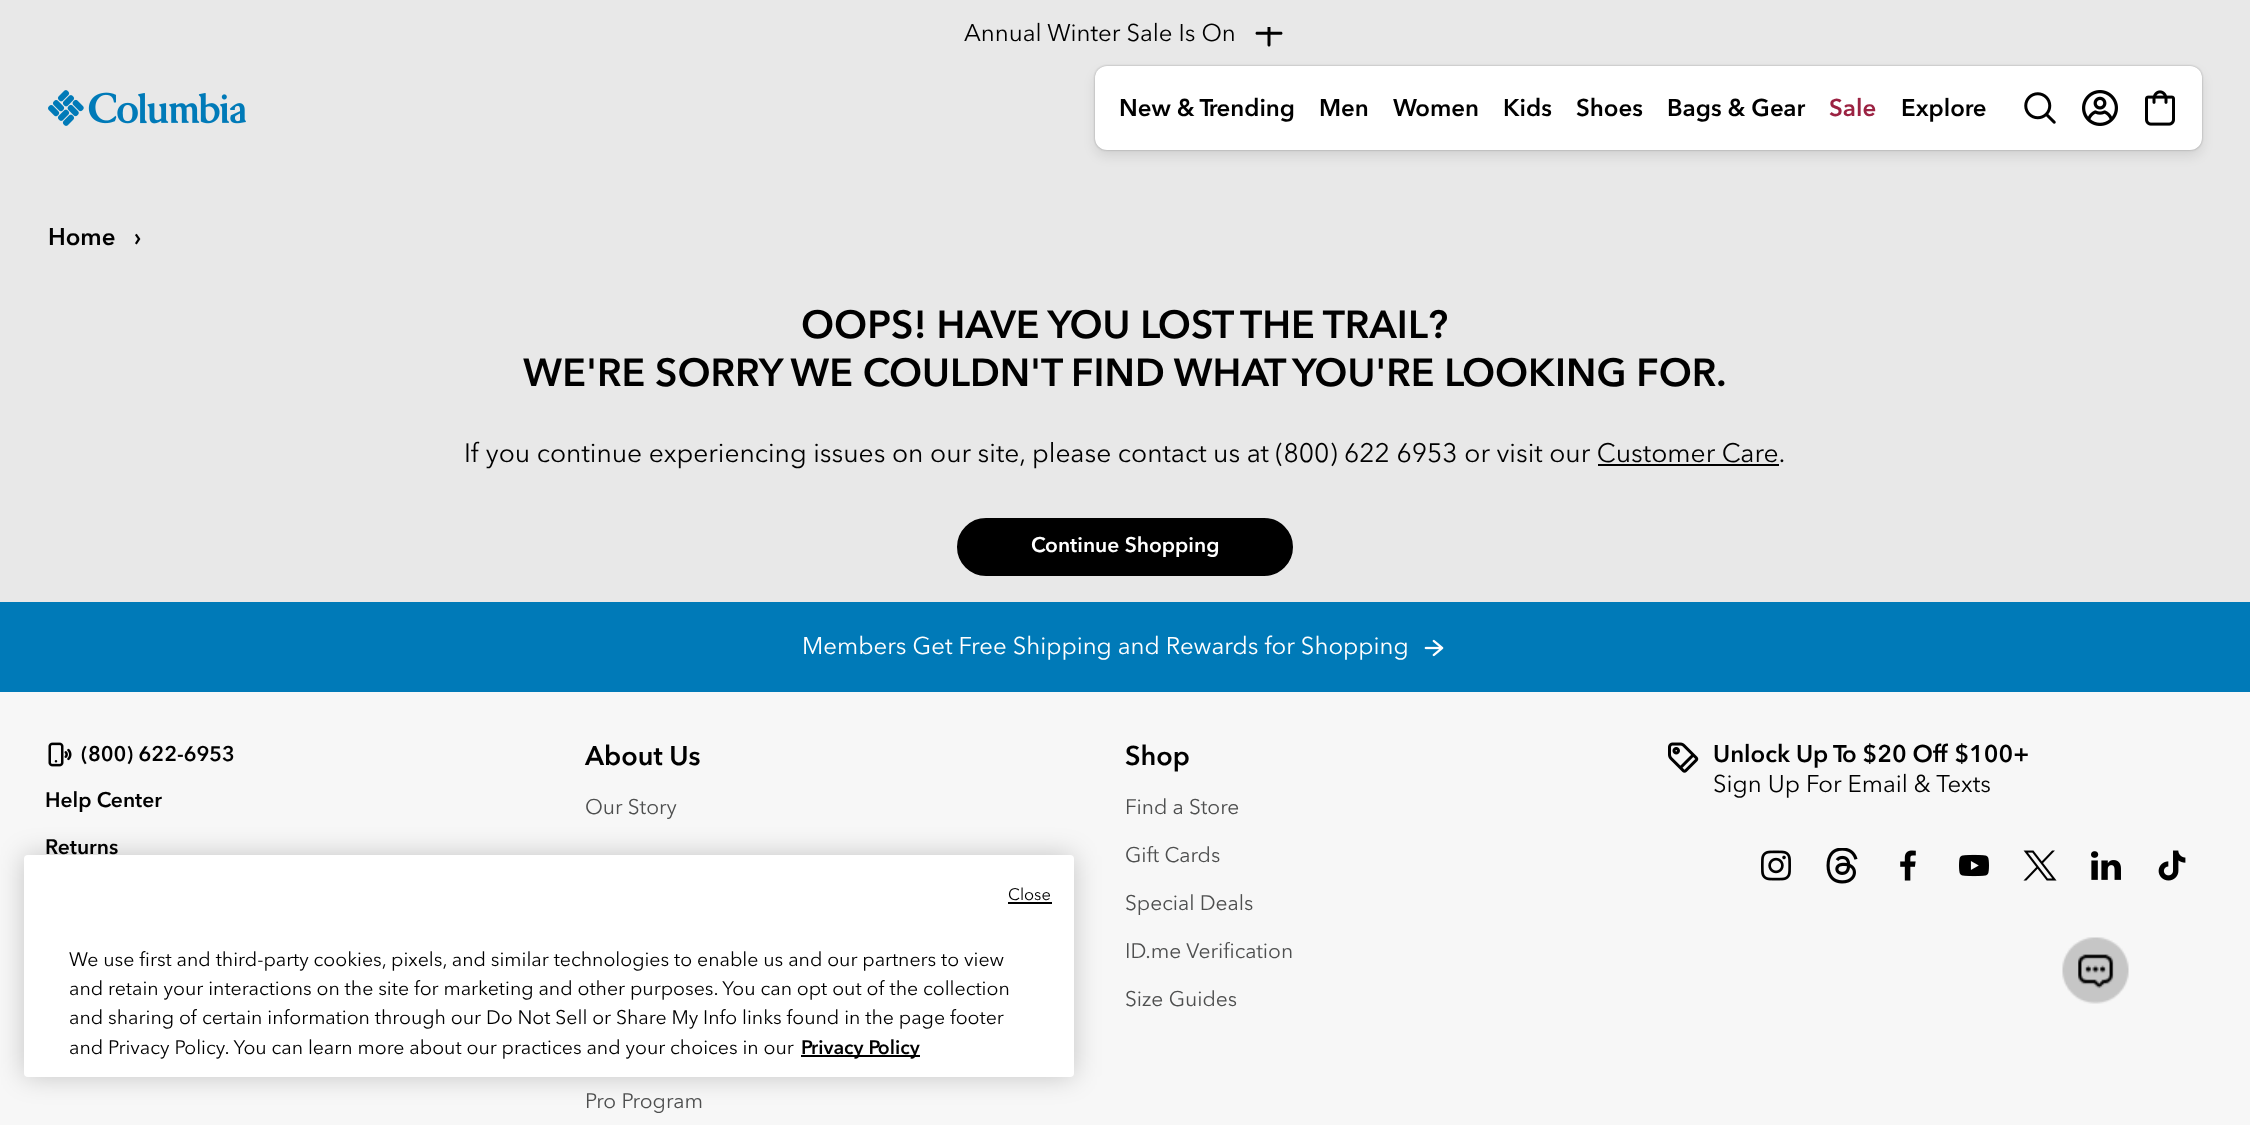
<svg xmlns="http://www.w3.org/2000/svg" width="2250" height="1125">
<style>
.a{font:24px Avenir Next;fill:#000}
.b{font:600 24px Avenir Next;fill:#000}
.c{font:600 24px Avenir Next;fill:#9b2242}
.d{font:600 39px Avenir Next;fill:#000}
.e{font:26.4px Avenir Next;fill:#000}
.f{font:600 21px Avenir Next;fill:#fff}
.g{font:24px Avenir Next;fill:#fff}
.h{font:600 21px Avenir Next;fill:#000}
.i{font:600 27px Avenir Next;fill:#000}
.j{font:21px Avenir Next;fill:#4e4f4f}
.k{font:16.5px Avenir Next;fill:#000}
.l{font:19.5px Avenir Next;fill:#000}
.m{font:600 19.5px Avenir Next;fill:#000}
</style>
<rect width="100%" height="100%" fill="#e8e8e8"/>
<image href="1.png" x="1255" y="27" width="28" height="20"/>
<image href="2.png" x="48" y="90" width="198" height="36"/>
<rect fill="#1415154d" filter="blur(1px)" x="1095" y="66" width="1107" height="84" rx="12"/>
<rect fill="#1415151a" filter="blur(6px)" x="1095" y="72" width="1107" height="84" rx="12"/>
<rect fill="#fff" x="1095" y="66" width="1107" height="84" rx="12"/>
<image href="3.png" x="2024" y="92" width="32" height="32"/>
<image href="4.png" x="2082" y="90" width="36" height="36"/>
<image href="5.png" x="2145" y="90" width="30" height="36"/>
<path fill="#000" d="M1598 464h181v2H1598z"/>
<rect fill="#000" stroke="#000" stroke-width="2" x="958" y="519" width="334" height="56" rx="28"/>
<path fill="#f7f7f7" d="M0 692h2250v433H0z"/>
<path fill="#007ab8" d="M0 602h2250v90H0z"/>
<image href="6.png" x="1424" y="639" width="20" height="18"/>
<image href="7.png" x="48" y="742" width="24" height="25"/>
<image href="8.png" x="1668" y="742" width="31" height="31"/>
<image href="9.png" x="1761" y="850" width="30" height="31"/>
<image href="10.png" x="1826" y="848" width="32" height="36"/>
<image href="11.png" x="1900" y="850" width="16" height="31"/>
<image href="12.png" x="1959" y="854" width="30" height="23"/>
<image href="13.png" x="2023" y="850" width="34" height="31"/>
<image href="14.png" x="2091" y="851" width="30" height="29"/>
<image href="15.png" x="2158" y="850" width="28" height="31"/>
<rect fill="#00000033" filter="blur(13.5px)" x="24" y="855" width="1050" height="222" rx="4"/>
<rect fill="#fff" x="24" y="855" width="1050" height="222" rx="4"/>
<path fill="#000" d="M1008 902h44v2H1008z"/>
<path fill="#000" d="M801 1055h119v2H801z"/>
<image href="16.png" x="2062" y="937" width="67" height="67"/>
<text class="a" x="964" y="41">Annual Winter Sale Is On</text>
<text class="b" x="1119" y="116">New &amp; Trending</text>
<text class="b" x="1319" y="116">Men</text>
<text class="b" x="1393" y="116">Women</text>
<text class="b" x="1503" y="116">Kids</text>
<text class="b" x="1576" y="116">Shoes</text>
<text class="b" x="1667" y="116">Bags &amp; Gear</text>
<text class="c" x="1829" y="116">Sale</text>
<text class="b" x="1901" y="116">Explore</text>
<text class="b" x="48" y="245">Home</text>
<text class="b" x="134" y="245">›</text>
<text class="d" x="801" y="338">OOPS! HAVE YOU LOST THE TRAIL?</text>
<text class="d" x="523" y="386">WE'RE SORRY WE COULDN'T FIND WHAT YOU'RE LOOKING FOR.</text>
<text class="e" x="464" y="462">If you continue experiencing issues on our site, please contact us at (800) 622 6953 or visit our Customer Care.</text>
<text class="f" x="1031" y="552">Continue Shopping</text>
<text class="g" x="802" y="654">Members Get Free Shipping and Rewards for Shopping</text>
<text class="h" x="81" y="761">(800) 622-6953</text>
<text class="h" x="45" y="807">Help Center</text>
<text class="h" x="45" y="854">Returns</text>
<text class="i" x="585" y="765">About Us</text>
<text class="j" x="585" y="814">Our Story</text>
<text class="j" x="585" y="1108">Pro Program</text>
<text class="i" x="1125" y="765">Shop</text>
<text class="j" x="1125" y="814">Find a Store</text>
<text class="j" x="1125" y="862">Gift Cards</text>
<text class="j" x="1125" y="910">Special Deals</text>
<text class="j" x="1125" y="958">ID.me Verification</text>
<text class="j" x="1125" y="1006">Size Guides</text>
<text class="b" x="1713" y="762">Unlock Up To $20 Off $100+</text>
<text class="a" x="1713" y="792">Sign Up For Email &amp; Texts</text>
<text class="k" x="1008" y="900">Close</text>
<text class="l" x="69" y="966">We use first and third-party cookies, pixels, and similar technologies to enable us and our partners to view</text>
<text class="l" x="69" y="995">and retain your interactions on the site for marketing and other purposes. You can opt out of the collection</text>
<text class="l" x="69" y="1024">and sharing of certain information through our Do Not Sell or Share My Info links found in the page footer</text>
<text class="l" x="69" y="1054">and Privacy Policy. You can learn more about our practices and your choices in our</text>
<text class="m" x="801" y="1054">Privacy Policy</text>
</svg>
